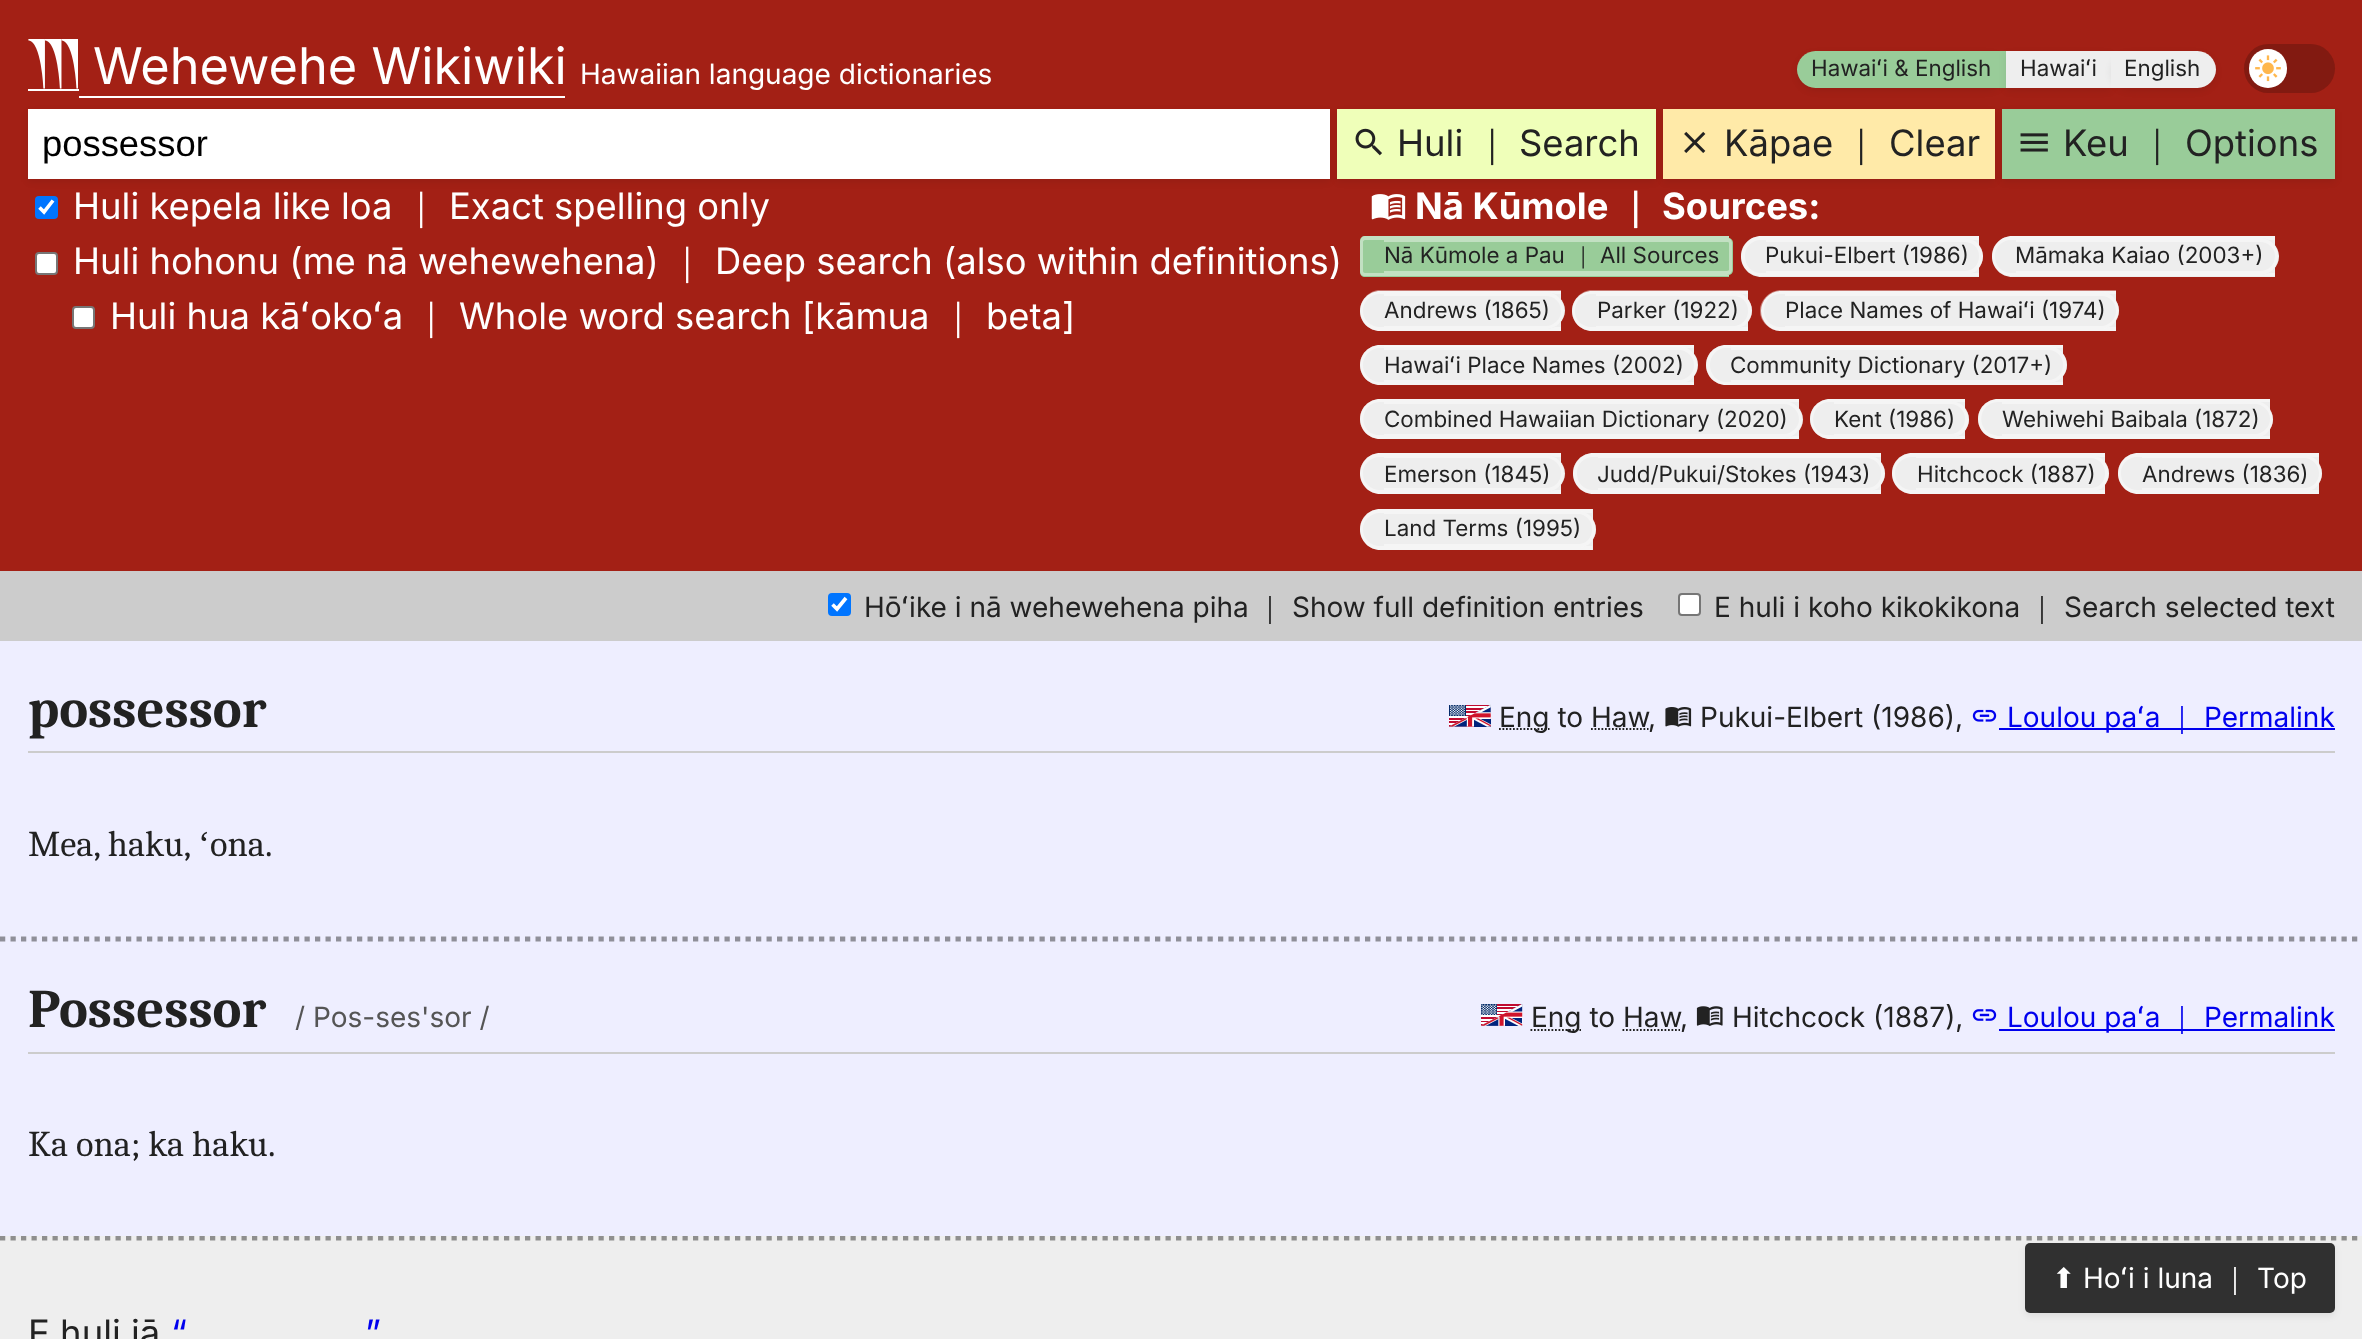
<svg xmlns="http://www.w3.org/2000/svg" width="2362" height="1339">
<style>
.a{font:50.5px Inter;fill:#fff}
.b{font:28px Inter;fill:#fff}
.c{font:22.4px Inter;fill:#222}
.d{font:36.4px Liberation Sans;fill:#000}
.e{font:36.4px Inter;fill:#222}
.f{font:500 36.4px WenQuanYi Zen Hei;fill:#222}
.g{font:36.4px Inter;fill:#fff}
.h{font:500 36.4px WenQuanYi Zen Hei;fill:#fff}
.i{font:bold 36.4px Inter;fill:#fff}
.j{font:bold 36.4px WenQuanYi Zen Hei;fill:#fff}
.k{font:500 22.4px WenQuanYi Zen Hei;fill:#222}
.l{font:28px Inter;fill:#222}
.m{font:500 28px WenQuanYi Zen Hei;fill:#222}
.n{font:bold 54.5px Caladea;fill:#222}
.o{font:28px Inter;fill:#00e}
.p{font:500 28px WenQuanYi Zen Hei;fill:#00e}
.q{font:36.4px Caladea;fill:#222}
.r{font:36.4px Liberation Serif;fill:#222}
.s{font:28px Inter;fill:#555}
.t{font:28px DejaVu Sans;fill:#fff}
.u{font:500 28px WenQuanYi Zen Hei;fill:#fff}
.v{font:36.4px Inter;fill:#00e}
</style>
<defs>
<clipPath id="clip1"><path d="M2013 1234h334v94h-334zm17 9h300c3 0 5 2 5 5v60c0 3-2 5-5 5h-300c-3 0-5-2-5-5v-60c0-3 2-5 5-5z" clip-rule="evenodd"/></clipPath>
</defs>
<rect width="100%" height="100%" fill="#eee"/>
<path fill="#a32015" d="M0 0h2362v571H0z"/>
<path fill="#fff" d="M28 89h51v2H28z"/>
<path fill="#fff" d="M79 96h486v2H79z"/>
<image href="1.png" x="28" y="39" width="50" height="50"/>
<rect fill="#00000012" filter="blur(3.5px)" x="1797" y="54" width="209" height="37" rx="18.5"/>
<path fill="#9c9" d="M1815.5 51h190.5v37h-190.5c-10 0-18.5-8.5-18.5-18.5c0-10 8.5-18.5 18.5-18.5z"/>
<path fill="#00000012" filter="blur(3.5px)" d="M2006 54h105v37H2006z"/>
<path fill="#eee" d="M2006 51h105v37H2006z"/>
<rect fill="#00000012" filter="blur(3.5px)" x="2111" y="54" width="105" height="37" rx="18.5"/>
<path fill="#eee" d="M2111 51h86.5c10 0 18.5 8.5 18.5 18.5c0 10-8.5 18.5-18.5 18.5h-86.5z"/>
<rect fill="#821a11" x="2244" y="44" width="91" height="49" rx="24.5"/>
<rect fill="#fff" x="2249" y="49" width="38" height="39" rx="19"/>
<image href="2.png" x="2255" y="55" width="26" height="27"/>
<path fill="#00000012" filter="blur(3.5px)" d="M28 112h1302v70H28z"/>
<path fill="#fff" d="M28 109h1302v70H28z"/>
<path fill="#00000012" filter="blur(3.5px)" d="M1337 112h319v70H1337z"/>
<path fill="#efffb9" d="M1337 109h319v70H1337z"/>
<image href="3.png" x="1355" y="128" width="27" height="28"/>
<path fill="#00000012" filter="blur(3.5px)" d="M1663 112h332v70H1663z"/>
<path fill="#ffeaa8" d="M1663 109h332v70H1663z"/>
<image href="4.png" x="1684" y="131" width="22" height="22"/>
<path fill="#00000012" filter="blur(3.5px)" d="M2002 112h333v70H2002z"/>
<path fill="#9c9" d="M2002 109h333v70H2002z"/>
<image href="5.png" x="2020" y="133" width="28" height="19"/>
<rect fill="#0075ff" x="35" y="196" width="23" height="23" rx="4"/>
<path fill="none" stroke="#fff" stroke-width="3.6" d="M39.5 207.5l4.5 4.5l9-11.5"/>
<rect fill="#fff" stroke="#767676" stroke-width="2" x="36" y="253" width="21" height="21" rx="3"/>
<rect fill="#fff" stroke="#767676" stroke-width="2" x="73" y="307" width="21" height="21" rx="3"/>
<image href="6.png" x="1371" y="194" width="35" height="26"/>
<path fill="#9c9" d="M1365 236h364v41h-364c-3 0-5-2-5-5v-31c0-3 2-5 5-5z"/>
<path fill="#ffffff66" fill-rule="evenodd" d="M1365 236h364v40h-364c-3 0-5-2-5-5v-29c0-3 2-6 5-6zm0 4h364v33h-364c-1 0-2-1-2-2v-29c0-1 1-2 2-2z"/>
<path fill="#c2e0c2" d="M1384 240h216v2H1384z"/>
<path fill="#c2e0c2" d="M1384 271h216v2H1384z"/>
<path fill="#9c9" d="M1600 238h128c3 0 5 2 5 5v27c0 3-2 5-5 5h-128z"/>
<path fill="#c2e0c2" fill-rule="evenodd" d="M1600 238h127c3 0 5 2 5 5v27c0 2-2 5-5 5h-127zm0 4h127c1 0 2 0 2 1v27c0 0-1 1-2 1h-127z"/>
<path fill="#eee" d="M1761.5 236h217.5v41h-217.5c-11.5 0-20.5-9-20.5-20.5c0-11.5 9-20.5 20.5-20.5z"/>
<path fill="#ffffff66" fill-rule="evenodd" d="M1761 236h218v40h-218c-11 0-20-9-20-20c0-11 9-20 20-20zm0 4h218v33h-218c-9 0-16-7-16-17c0-9 7-16 16-16z"/>
<path fill="#eee" d="M1766 238h198.5c10 0 18.5 8.5 18.5 18.5c0 10-8.5 18.5-18.5 18.5h-198.5z"/>
<path fill="#ffffff66" fill-rule="evenodd" d="M1766 238h198c11 0 19 8 19 18c0 11-8 19-19 19h-198zm0 4h198c9 0 15 6 15 14c0 9-6 15-15 15h-198z"/>
<path fill="#eee" d="M2012.5 236h262.5v41h-262.5c-11.5 0-20.5-9-20.5-20.5c0-11.5 9-20.5 20.5-20.5z"/>
<path fill="#ffffff66" fill-rule="evenodd" d="M2012 236h263v40h-263c-11 0-20-9-20-20c0-11 9-20 20-20zm0 4h263v33h-263c-10 0-17-7-17-17c0-9 7-16 17-16z"/>
<path fill="#eee" d="M2016 238h244.5c10 0 18.5 8.5 18.5 18.5c0 10-8.5 18.5-18.5 18.5h-244.5z"/>
<path fill="#f5f5f5" fill-rule="evenodd" d="M2016 238h244c10 0 18 8 18 18c0 11-8 19-18 19h-244zm0 4h244c8 0 15 6 15 14c0 9-7 15-15 15h-244z"/>
<path fill="#eee" d="M1380 291h181v40h-181c-11 0-20-9-20-20c0-11 9-20 20-20z"/>
<path fill="#ffffff66" fill-rule="evenodd" d="M1380 290h181v41h-181c-11 0-20-9-20-20c0-11 9-21 20-21zm0 4h181v33h-181c-9 0-17-7-17-16c0-10 8-17 17-17z"/>
<path fill="#eee" d="M1384 292h162.5c10 0 18.5 8.5 18.5 18.5c0 10-8.5 18.5-18.5 18.5h-162.5z"/>
<path fill="#f5f5f5" fill-rule="evenodd" d="M1384 292h162c10 0 18 8 18 19c0 10-8 18-18 18h-162zm0 4h162c8 0 15 6 15 15c0 8-7 15-15 15h-162z"/>
<path fill="#eee" d="M1592 291h156v40h-156c-11 0-20-9-20-20c0-11 9-20 20-20z"/>
<path fill="#ffffff66" fill-rule="evenodd" d="M1592 290h156v41h-156c-11 0-20-9-20-20c0-11 9-21 20-21zm0 4h156v33h-156c-10 0-17-7-17-16c0-10 7-17 17-17z"/>
<path fill="#eee" d="M1596 292h137.5c10 0 18.5 8.5 18.5 18.5c0 10-8.5 18.5-18.5 18.5h-137.5z"/>
<path fill="#ffffff66" fill-rule="evenodd" d="M1596 292h137c11 0 19 8 19 19c0 10-8 18-19 18h-137zm0 4h137c9 0 15 6 15 15c0 8-6 15-15 15h-137z"/>
<path fill="#eee" d="M1781 291h335v40h-335c-11 0-20-9-20-20c0-11 9-20 20-20z"/>
<path fill="#ffffff66" fill-rule="evenodd" d="M1781 290h335v41h-335c-11 0-21-9-21-20c0-11 10-21 21-21zm0 4h335v33h-335c-10 0-17-7-17-16c0-10 7-17 17-17z"/>
<path fill="#eee" d="M1785 292h315.5c10 0 18.5 8.5 18.5 18.5c0 10-8.5 18.5-18.5 18.5h-315.5z"/>
<path fill="#ffffff66" fill-rule="evenodd" d="M1785 292h316c10 0 18 8 18 19c0 10-8 18-18 18h-316zm0 4h316c8 0 15 6 15 15c0 8-7 15-15 15h-316z"/>
<path fill="#eee" d="M1380 345h314v40h-314c-11 0-20-9-20-20c0-11 9-20 20-20z"/>
<path fill="#ffffff66" fill-rule="evenodd" d="M1380 345h314v40h-314c-11 0-20-9-20-20c0-11 9-20 20-20zm0 3h314v34h-314c-9 0-17-8-17-17c0-9 8-17 17-17z"/>
<path fill="#eee" d="M1384 347h296c10 0 18 8 18 18c0 10-8 18-18 18h-296z"/>
<path fill="#ffffff66" fill-rule="evenodd" d="M1384 346h295c22 1 25 33 4 37h-299zm0 4h295c8 0 15 7 15 15c0 8-7 15-15 15h-295z"/>
<path fill="#eee" d="M1726 345h337v40h-337c-11 0-20-9-20-20c0-11 9-20 20-20z"/>
<path fill="#ffffff66" fill-rule="evenodd" d="M1726 345h337v40h-337c-11 0-20-9-20-20c0-11 9-20 20-20zm0 3h337v34h-337c-9 0-16-8-16-17c0-9 7-17 16-17z"/>
<path fill="#eee" d="M1731 347h318c10 0 18 8 18 18c0 10-8 18-18 18h-318z"/>
<path fill="#ffffff66" fill-rule="evenodd" d="M1731 346h317c11 0 19 9 19 19c0 10-8 18-19 18h-317zm0 4h317c9 0 15 7 15 15c0 8-6 15-15 15h-317z"/>
<path fill="#eee" d="M1380 399h419v40h-419c-11 0-20-9-20-20c0-11 9-20 20-20z"/>
<path fill="#ffffff66" fill-rule="evenodd" d="M1380 399h419v40h-419c-11 0-20-9-20-20c0-11 9-20 20-20zm0 3h419v34l-422-1c-20-3-17-33 3-33z"/>
<path fill="#eee" d="M1384 401h400.5c10 0 18.5 8.5 18.5 18.5c0 10-8.5 18.5-18.5 18.5h-400.5z"/>
<path fill="#f5f5f5" fill-rule="evenodd" d="M1384 401h400c10 0 18 8 18 18c0 10-8 19-18 19h-400zm0 3h400c8 0 15 7 15 15c0 8-7 15-15 15h-400z"/>
<path fill="#eee" d="M1830 399h135v40h-135c-11 0-20-9-20-20c0-11 9-20 20-20z"/>
<path fill="#ffffff66" fill-rule="evenodd" d="M1830 399h135v40h-135c-11 0-20-9-20-20c0-11 9-20 20-20zm0 3h135v34l-139-1c-19-3-16-33 4-33z"/>
<path fill="#eee" d="M1834 401h116.5c10 0 18.5 8.5 18.5 18.5c0 10-8.5 18.5-18.5 18.5h-116.5z"/>
<path fill="#ffffff66" fill-rule="evenodd" d="M1834 401h116c11 0 19 8 19 18c0 10-8 19-19 19h-116zm0 3h116c9 0 15 7 15 15c0 8-6 15-15 15h-116z"/>
<path fill="#eee" d="M1998 399h272v40h-272c-11 0-20-9-20-20c0-11 9-20 20-20z"/>
<path fill="#ffffff66" fill-rule="evenodd" d="M1998 399h272v40h-272c-11 0-20-9-20-20c0-11 9-20 20-20zm0 3h272v34h-272l-7-2c-16-7-11-32 7-32z"/>
<path fill="#eee" d="M2002 401h252.5c10 0 18.5 8.5 18.5 18.5c0 10-8.5 18.5-18.5 18.5h-252.5z"/>
<path fill="#ffffff66" fill-rule="evenodd" d="M2002 401h253c10 0 18 8 18 18c0 10-8 19-18 19h-253zm0 3h253c8 0 15 7 15 15c0 8-7 15-15 15h-253z"/>
<path fill="#eee" d="M1380.5 453h180.5v41h-180.5c-11.5 0-20.5-9-20.5-20.5c0-11.5 9-20.5 20.5-20.5z"/>
<path fill="#ffffff66" fill-rule="evenodd" d="M1380 453h181v41h-181c-11 0-20-10-20-21c0-11 9-20 20-20zm0 4h181v33h-181c-9 0-17-7-17-17c0-9 8-16 17-16z"/>
<path fill="#eee" d="M1384 455h162.5c10 0 18.5 8.5 18.5 18.5c0 10-8.5 18.5-18.5 18.5h-162.5z"/>
<path fill="#f5f5f5" fill-rule="evenodd" d="M1384 455h162c10 0 18 8 18 18c0 11-8 19-18 19h-162zm0 3h162c8 0 15 7 15 15c0 9-7 15-15 15h-162z"/>
<path fill="#eee" d="M1593.5 453h287.5v41h-287.5c-11.5 0-20.5-9-20.5-20.5c0-11.5 9-20.5 20.5-20.5z"/>
<path fill="#ffffff66" fill-rule="evenodd" d="M1593 453h288v41h-288c-11 0-20-10-20-21c0-11 9-20 20-20zm0 4h288v33h-288c-9 0-16-7-16-17c0-9 7-16 16-16z"/>
<path fill="#eee" d="M1598 455h268.5c10 0 18.5 8.5 18.5 18.5c0 10-8.5 18.5-18.5 18.5h-268.5z"/>
<path fill="#ffffff66" fill-rule="evenodd" d="M1598 455h268c11 0 19 8 19 18c0 11-8 19-19 19h-268zm0 3h268c9 0 15 7 15 15c0 9-6 15-15 15h-268z"/>
<path fill="#eee" d="M1912.5 453h192.5v41h-192.5c-11.5 0-20.5-9-20.5-20.5c0-11.5 9-20.5 20.5-20.5z"/>
<path fill="#ffffff66" fill-rule="evenodd" d="M1912 453h193v41h-193c-11 0-20-10-20-21c0-11 9-20 20-20zm0 4h193v33h-193c-9 0-17-7-17-17c0-9 8-16 17-16z"/>
<path fill="#eee" d="M1916 455h174.5c10 0 18.5 8.5 18.5 18.5c0 10-8.5 18.5-18.5 18.5h-174.5z"/>
<path fill="#ffffff66" fill-rule="evenodd" d="M1916 455h174c11 0 19 8 19 18c0 11-8 19-19 19h-174zm0 3h174c9 0 15 7 15 15c0 9-6 15-15 15h-174z"/>
<path fill="#eee" d="M2138.5 453h180.5v41h-180.5c-11.5 0-20.5-9-20.5-20.5c0-11.5 9-20.5 20.5-20.5z"/>
<path fill="#ffffff66" fill-rule="evenodd" d="M2138 453h181v41h-181c-11 0-20-10-20-21c0-11 9-20 20-20zm0 4h181v33h-181c-10 0-17-7-17-17c0-9 7-16 17-16z"/>
<path fill="#eee" d="M2142 455h161.5c10 0 18.5 8.5 18.5 18.5c0 10-8.5 18.5-18.5 18.5h-161.5z"/>
<path fill="#ffffff66" fill-rule="evenodd" d="M2142 455h162c10 0 18 8 18 18c0 11-8 19-18 19h-162zm0 3h162c8 0 15 7 15 15c0 9-7 15-15 15h-162z"/>
<path fill="#eee" d="M1380.5 509h212.5v41h-212.5c-11.5 0-20.5-9-20.5-20.5c0-11.5 9-20.5 20.5-20.5z"/>
<path fill="#ffffff66" fill-rule="evenodd" d="M1380 509h212v41h-212c-11 0-20-10-20-21c0-11 9-20 20-20zm0 4h212v33h-212c-9 0-17-7-17-17c0-9 8-16 17-16z"/>
<path fill="#eee" d="M1384 511h193.5c10 0 18.5 8.5 18.5 18.5c0 10-8.5 18.5-18.5 18.5h-193.5z"/>
<path fill="#ffffff66" fill-rule="evenodd" d="M1384 511h194c10 0 18 8 18 18c0 11-8 19-18 19h-194zm0 3h194c8 0 14 7 14 15c0 9-6 15-14 15h-194z"/>
<path fill="#ccc" d="M0 571h2362v70H0z"/>
<rect fill="#0075ff" x="828" y="593" width="23" height="23" rx="4"/>
<path fill="none" stroke="#fff" stroke-width="3.6" d="M832.5 604.5l4.5 4.5l9-11"/>
<rect fill="#fff" stroke="#767676" stroke-width="2" x="1679" y="594" width="21" height="21" rx="3"/>
<path fill="none" stroke="#8f8f8f" stroke-width="5.2" stroke-dasharray="5.25 5.25" d="M0 1238h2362.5"/>
<path fill="#eef" d="M0 641h2362v595H0z"/>
<path fill="#ccc" d="M28 751h2307v2H28z"/>
<image href="7.png" x="1449" y="704" width="42" height="23"/>
<path fill="none" stroke="#222" stroke-width="1.8" stroke-dasharray="1.75 1.75" d="M1499 729h50.5"/>
<path fill="none" stroke="#222" stroke-width="1.8" stroke-dasharray="1.75 1.75" d="M1591 729h57.5"/>
<image href="8.png" x="1665" y="707" width="27" height="20"/>
<image href="9.png" x="1972" y="709" width="25" height="13"/>
<path fill="#00e" d="M1999 728h336v2H1999z"/>
<path fill="none" stroke="#8f8f99" stroke-width="5.2" stroke-dasharray="5.25 5.25" d="M0 939h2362.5"/>
<path fill="#ccc" d="M28 1052h2307v2H28z"/>
<image href="10.png" x="1481" y="1004" width="42" height="22"/>
<path fill="none" stroke="#222" stroke-width="1.8" stroke-dasharray="1.75 1.75" d="M1530.5 1030h50.5"/>
<path fill="none" stroke="#222" stroke-width="1.8" stroke-dasharray="1.75 1.75" d="M1622.5 1030h57.5"/>
<image href="11.png" x="1696" y="1006" width="27" height="20"/>
<image href="12.png" x="1972" y="1009" width="25" height="12"/>
<path fill="#00e" d="M1999 1029h336v2H1999z"/>
<g clip-path="url(#clip1)">
<rect fill="#00000012" filter="blur(3.5px)" x="2025" y="1246" width="310" height="70" rx="5"/>
</g>
<rect fill="#000000cc" x="2025" y="1243" width="310" height="70" rx="5"/>
<text class="a" x="93" y="84">Wehewehe Wikiwiki</text>
<text class="b" x="580" y="84">Hawaiian language dictionaries</text>
<text class="c" x="1811" y="76">Hawaiʻi &amp; English</text>
<text class="c" x="2020" y="76">Hawaiʻi</text>
<text class="c" x="2124" y="76">English</text>
<text class="d" x="42" y="156">possessor</text>
<text class="e" x="1397" y="156">Huli</text>
<text class="f" x="1474" y="156">｜</text>
<text class="e" x="1519" y="156">Search</text>
<text class="e" x="1724" y="156">Kāpae</text>
<text class="f" x="1843" y="156">｜</text>
<text class="e" x="1889" y="156">Clear</text>
<text class="e" x="2063" y="156">Keu</text>
<text class="f" x="2139" y="156">｜</text>
<text class="e" x="2185" y="156">Options</text>
<text class="g" x="73" y="219">Huli kepela like loa</text>
<text class="h" x="403" y="219">｜</text>
<text class="g" x="449" y="219">Exact spelling only</text>
<text class="g" x="73" y="274">Huli hohonu (me nā wehewehena)</text>
<text class="h" x="669" y="274">｜</text>
<text class="g" x="715" y="274">Deep search (also within definitions)</text>
<text class="g" x="110" y="329">Huli hua kāʻokoʻa</text>
<text class="h" x="413" y="329">｜</text>
<text class="g" x="459" y="329">Whole word search [kāmua</text>
<text class="h" x="940" y="329">｜</text>
<text class="g" x="986" y="329">beta]</text>
<text class="i" x="1415" y="219">Nā Kūmole</text>
<text class="j" x="1617" y="219">｜</text>
<text class="i" x="1662" y="219">Sources:</text>
<text class="c" x="1384" y="263">Nā Kūmole a Pau</text>
<text class="k" x="1572" y="263">｜</text>
<text class="c" x="1600" y="263">All Sources</text>
<text class="c" x="1765" y="263">Pukui-Elbert (1986)</text>
<text class="c" x="2015" y="263">Māmaka Kaiao (2003+)</text>
<text class="c" x="1384" y="318">Andrews (1865)</text>
<text class="c" x="1597" y="318">Parker (1922)</text>
<text class="c" x="1785" y="318">Place Names of Hawaiʻi (1974)</text>
<text class="c" x="1384" y="373">Hawaiʻi Place Names (2002)</text>
<text class="c" x="1730" y="373">Community Dictionary (2017+)</text>
<text class="c" x="1384" y="427">Combined Hawaiian Dictionary (2020)</text>
<text class="c" x="1834" y="427">Kent (1986)</text>
<text class="c" x="2002" y="427">Wehiwehi Baibala (1872)</text>
<text class="c" x="1384" y="482">Emerson (1845)</text>
<text class="c" x="1597" y="482">Judd/Pukui/Stokes (1943)</text>
<text class="c" x="1917" y="482">Hitchcock (1887)</text>
<text class="c" x="2142" y="482">Andrews (1836)</text>
<text class="c" x="1384" y="536">Land Terms (1995)</text>
<text class="l" x="864" y="617">Hōʻike i nā wehewehena piha</text>
<text class="m" x="1256" y="617">｜</text>
<text class="l" x="1292" y="617">Show full definition entries</text>
<text class="l" x="1714" y="617">E huli i koho kikokikona</text>
<text class="m" x="2028" y="617">｜</text>
<text class="l" x="2064" y="617">Search selected text</text>
<text class="n" x="28" y="727">possessor</text>
<text class="l" x="1499" y="727">Eng to Haw</text>
<text class="l" x="1648" y="727">,</text>
<text class="l" x="1700" y="727">Pukui-Elbert (1986),</text>
<text class="o" x="2007" y="727">Loulou paʻa</text>
<text class="p" x="2168" y="727">｜</text>
<text class="o" x="2204" y="727">Permalink</text>
<text class="q" x="28" y="856">Mea, haku,</text>
<text class="r" x="198" y="856">ʻ</text>
<text class="q" x="210" y="856">ona.</text>
<text class="n" x="28" y="1027">Possessor</text>
<text class="s" x="295" y="1027">/ Pos-ses'sor /</text>
<text class="l" x="1531" y="1027">Eng to Haw</text>
<text class="l" x="1680" y="1027">,</text>
<text class="l" x="1732" y="1027">Hitchcock (1887),</text>
<text class="o" x="2007" y="1027">Loulou paʻa</text>
<text class="p" x="2168" y="1027">｜</text>
<text class="o" x="2204" y="1027">Permalink</text>
<text class="q" x="28" y="1156">Ka ona; ka haku.</text>
<text class="t" x="2052" y="1288">⬆︎</text>
<text class="b" x="2083" y="1288">Hoʻi i luna</text>
<text class="u" x="2221" y="1288">｜</text>
<text class="b" x="2257" y="1288">Top</text>
<text class="e" x="28" y="1346">E huli iā</text>
<text class="v" x="171" y="1346">“</text>
<text class="v" x="365" y="1346">”</text>
</svg>
